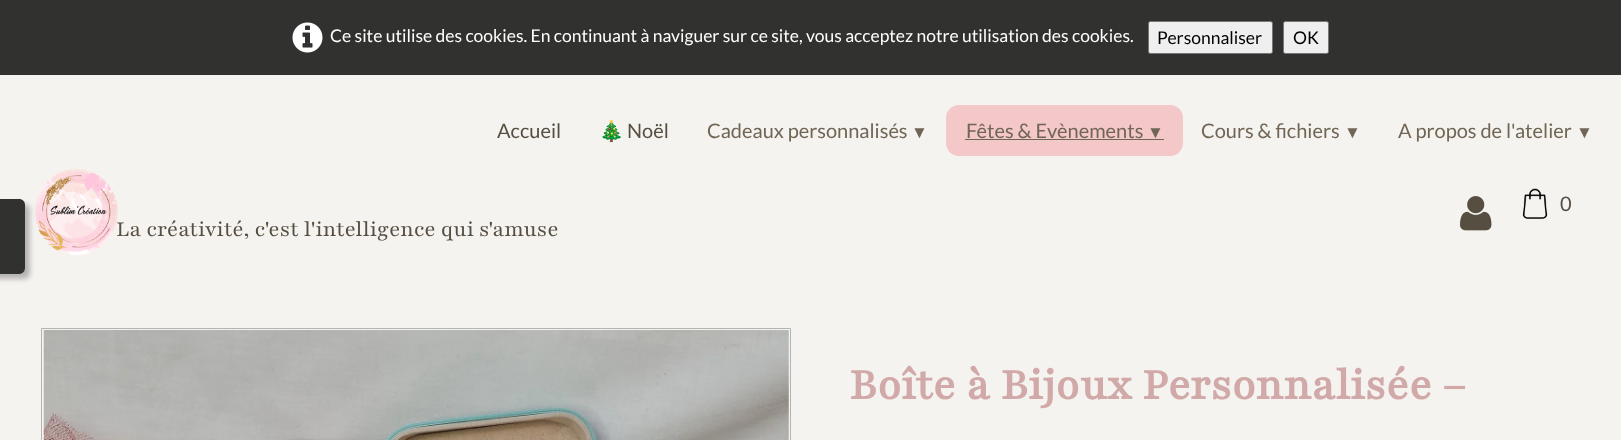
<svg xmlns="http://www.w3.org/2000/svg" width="1621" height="440">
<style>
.a{font:17.5px Lato;fill:#fff}
.b{font:17.5px Lato;fill:#000}
.c{font:20px Lato;fill:#574e42}
.d{font:20px Noto Color Emoji;fill:#574e42}
.e{font:20px Lato;fill:#716556}
.f{font:17px Liberation Serif;fill:#716556}
.g{font:300 23.75px 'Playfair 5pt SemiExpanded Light';fill:#574e42}
.h{font:bold 48.1px 'Playfair 5pt SemiExpanded Light';fill:#d1a9a9}
</style>
<defs>
<clipPath id="clip1"><path d="M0 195h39v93h-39zm-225 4h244c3.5 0 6 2.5 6 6v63c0 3.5-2.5 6-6 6h-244z" clip-rule="evenodd"/></clipPath>
</defs>
<rect width="100%" height="100%" fill="#f5f3ef"/>
<image href="4.png" x="35" y="169" width="83" height="86"/>
<g clip-path="url(#clip1)">
<rect fill="#79777782" filter="blur(2.5px)" x="-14" y="204" width="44" height="75" rx="6"/>
</g>
<path fill="#000000cc" d="M-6 199h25c3.5 0 6 2.5 6 6v63c0 3.5-2.5 6-6 6h-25z"/>
<path fill="#313130" d="M0 0h1621v75H0z"/>
<image href="1.png" x="292" y="22" width="31" height="31"/>
<rect fill="#efefef" stroke="#767676" x="1148.5" y="21.5" width="124" height="32" rx="2"/>
<rect fill="#efefef" stroke="#767676" x="1283.5" y="21.5" width="45" height="32" rx="2"/>
<rect fill="#f4c8c8" x="946" y="105" width="237" height="51" rx="13"/>
<path fill="#716556" d="M965 139h199v1H965z"/>
<image href="2.png" x="1460" y="196" width="32" height="35"/>
<image href="3.png" x="1522" y="188" width="26" height="31"/>
<path fill="none" stroke="#b3b3b3" d="M41.5 328.5h749v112H41.5z"/>
<image href="5.png" x="43" y="330" width="746" height="110"/>
<text class="a" x="330" y="42">Ce site utilise des cookies. En continuant à naviguer sur ce site, vous acceptez notre utilisation des cookies.</text>
<text class="b" x="1157" y="44">Personnaliser</text>
<text class="b" x="1293" y="44">OK</text>
<text class="c" x="497" y="138">Accueil</text>
<text class="d" x="599" y="138">🎄</text>
<text class="c" x="627" y="138">Noël</text>
<text class="e" x="707" y="138">Cadeaux personnalisés</text>
<text class="f" x="911" y="138">▼</text>
<text class="e" x="966" y="138">Fêtes &amp; Evènements</text>
<text class="f" x="1147" y="138">▼</text>
<text class="e" x="1201" y="138">Cours &amp; fichiers</text>
<text class="f" x="1344" y="138">▼</text>
<text class="e" x="1398" y="138">A propos de l'atelier</text>
<text class="f" x="1576" y="138">▼</text>
<text class="c" x="1560" y="211">0</text>
<text class="g" x="116" y="236">La créativité, c'est l'intelligence qui s'amuse</text>
<text class="h" x="849" y="399">Boîte à Bijoux Personnalisée –</text>
</svg>
